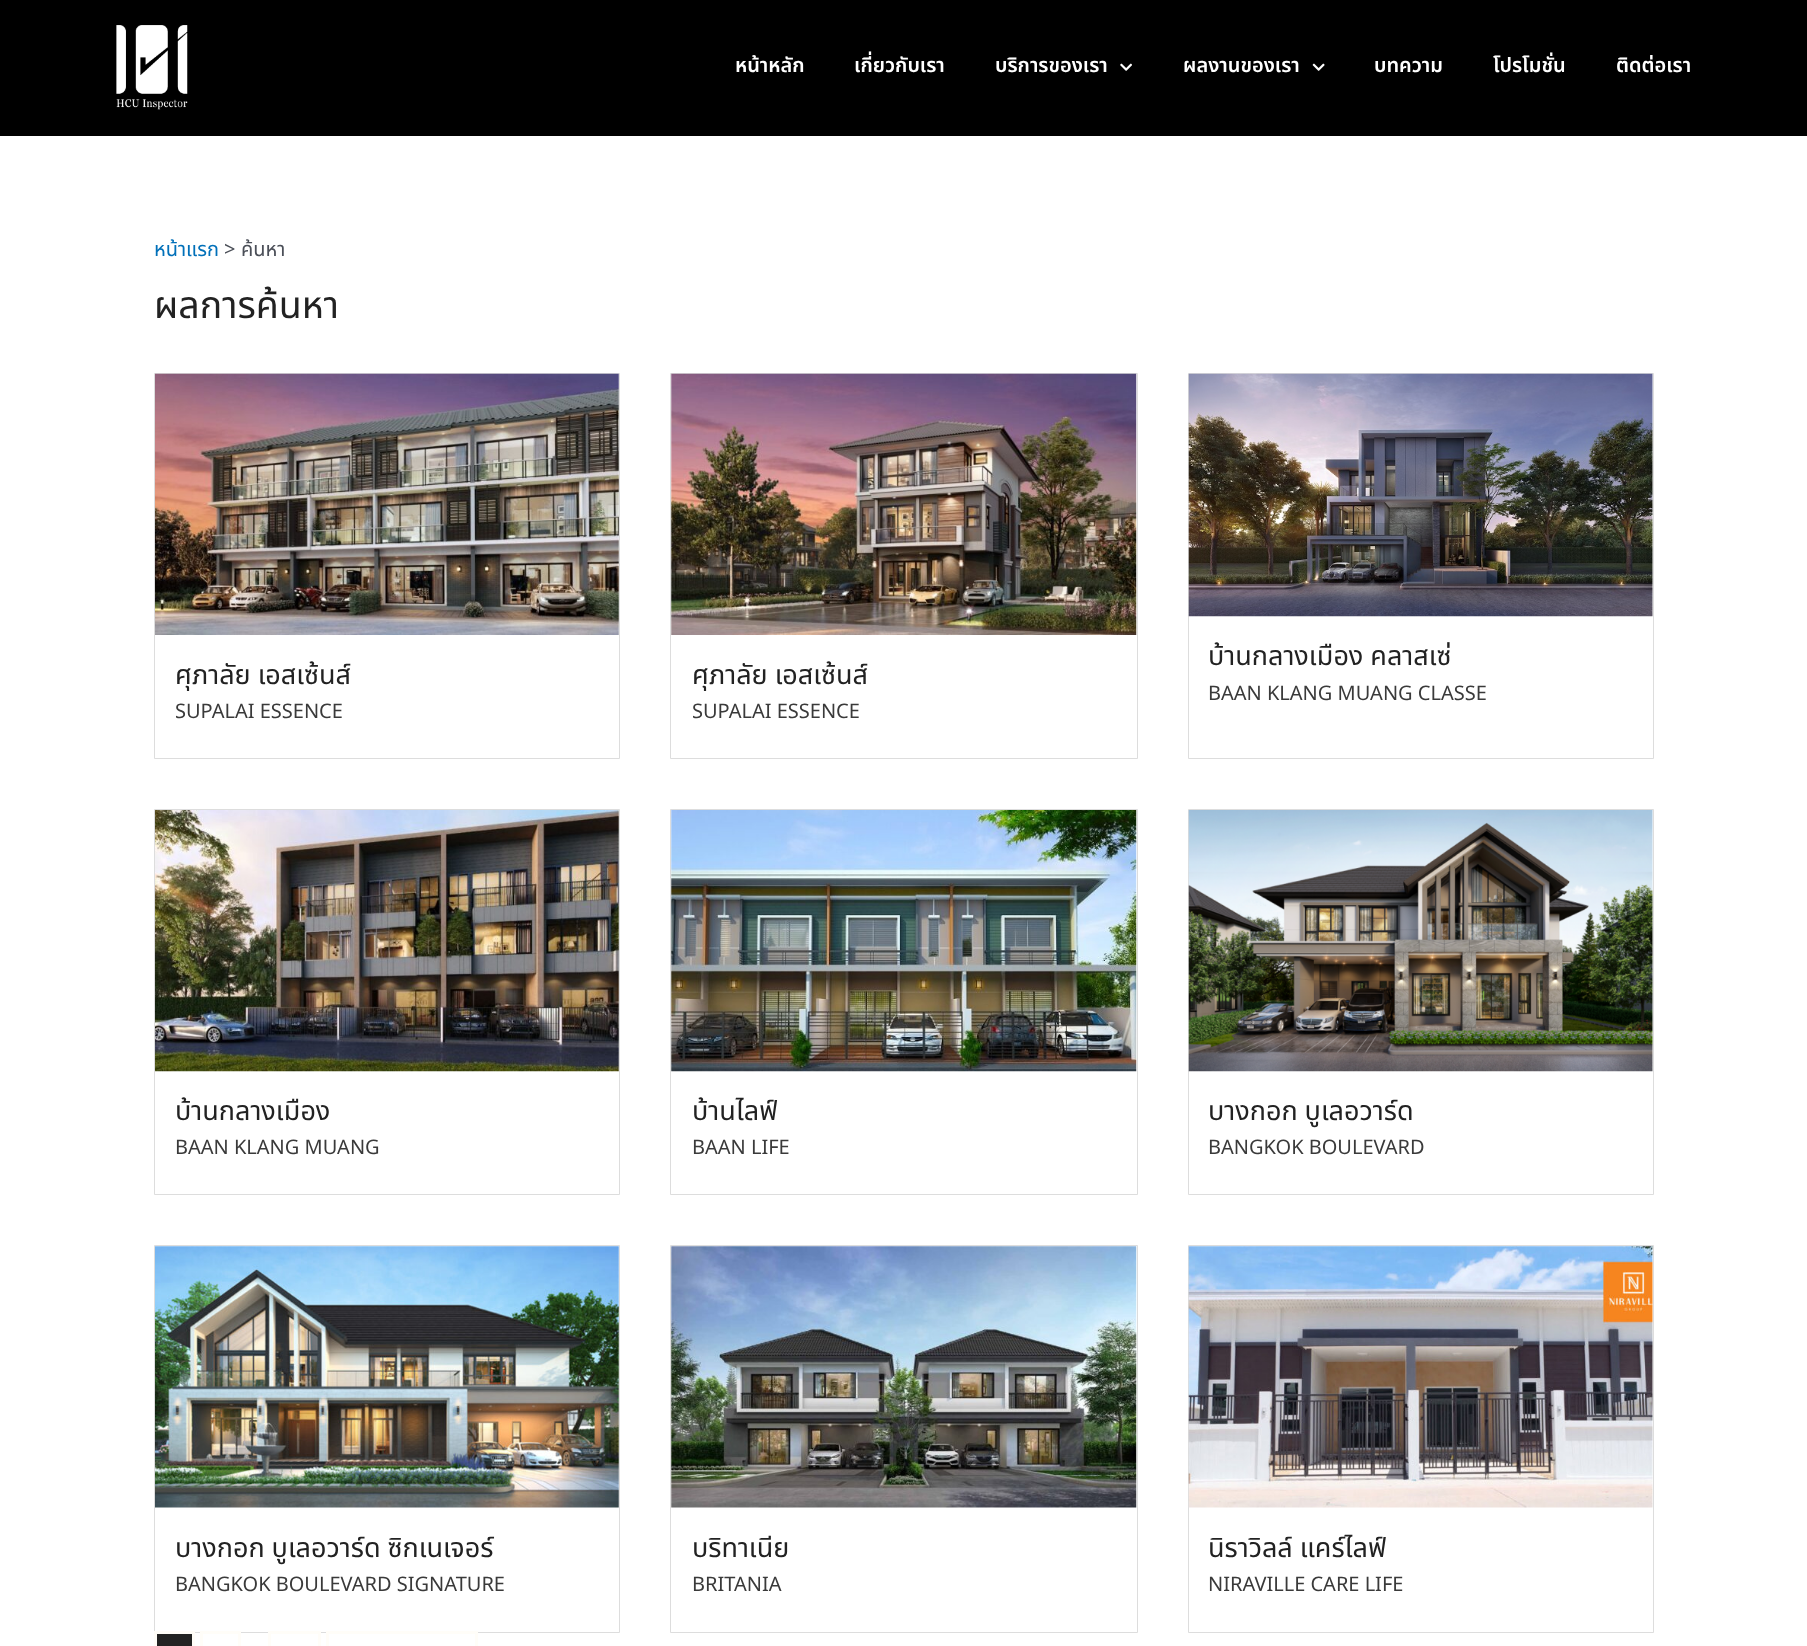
<svg xmlns="http://www.w3.org/2000/svg" width="1807" height="1646">
<style>
.a{font:600 20px Noto Sans Thai;fill:#fff}
.b{font:20px Noto Sans Thai;fill:#0170b9}
.c{font:20px Noto Sans;fill:#4b4f58}
.d{font:20px Noto Sans Thai;fill:#4b4f58}
.e{font:37.5px Noto Sans Thai;fill:#222}
.f{font:27px Noto Sans Thai;fill:#222}
.g{font:20px Noto Sans;fill:#3a3a3a}
</style>
<rect width="100%" height="100%" fill="#000"/>
<image href="1.png" x="116" y="25" width="72" height="85"/>
<image href="2.png" x="1120" y="63" width="12" height="8"/>
<image href="3.png" x="1312" y="63" width="13" height="8"/>
<path fill="#fff" d="M0 136h1807v1510H0z"/>
<path fill="none" stroke="#ddd" d="M154.5 373.5h465v385H154.5z"/>
<image href="4.png" x="155" y="373" width="464" height="262"/>
<path fill="none" stroke="#ddd" d="M670.5 373.5h467v385H670.5z"/>
<image href="5.png" x="671" y="373" width="466" height="262"/>
<path fill="none" stroke="#ddd" d="M1188.5 373.5h465v385H1188.5z"/>
<image href="6.png" x="1188" y="373" width="465" height="244"/>
<path fill="none" stroke="#ddd" d="M154.5 809.5h465v385H154.5z"/>
<image href="7.png" x="155" y="810" width="464" height="262"/>
<path fill="none" stroke="#ddd" d="M670.5 809.5h467v385H670.5z"/>
<image href="8.png" x="671" y="810" width="466" height="262"/>
<path fill="none" stroke="#ddd" d="M1188.5 809.5h465v385H1188.5z"/>
<image href="9.png" x="1188" y="810" width="465" height="262"/>
<path fill="none" stroke="#ddd" d="M154.5 1245.5h465v387H154.5z"/>
<image href="10.png" x="155" y="1246" width="464" height="262"/>
<path fill="none" stroke="#ddd" d="M670.5 1245.5h467v387H670.5z"/>
<image href="11.png" x="671" y="1246" width="466" height="262"/>
<path fill="none" stroke="#ddd" d="M1188.5 1245.5h465v387H1188.5z"/>
<image href="12.png" x="1188" y="1246" width="465" height="262"/>
<path fill="#222" stroke="#fffdf8" stroke-width="3" d="M155.5 1632.5h38v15H155.5z"/>
<path fill="none" stroke="#fffdf8" stroke-width="3" d="M201.5 1632.5h38v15H201.5z"/>
<path fill="none" stroke="#fffdf8" stroke-width="3" d="M269.5 1632.5h50v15H269.5z"/>
<path fill="#fffdf8" d="M326 1631h152v3H326z"/>
<path fill="#fffdf8" d="M326 1631h3v15H326z"/>
<path fill="#fffdf8" d="M475 1631h3v15H475z"/>
<text class="a" x="735" y="72">หน้าหลัก</text>
<text class="a" x="854" y="72">เกี่ยวกับเรา</text>
<text class="a" x="995" y="72">บริการของเรา</text>
<text class="a" x="1183" y="72">ผลงานของเรา</text>
<text class="a" x="1374" y="72">บทความ</text>
<text class="a" x="1493" y="72">โปรโมชั่น</text>
<text class="a" x="1616" y="72">ติดต่อเรา</text>
<text class="b" x="154" y="256">หน้าแรก</text>
<text class="c" x="224" y="256">&gt;</text>
<text class="d" x="241" y="256">ค้นหา</text>
<text class="e" x="154" y="318">ผลการค้นหา</text>
<text class="f" x="175" y="684">ศุภาลัย เอสเซ้นส์</text>
<text class="g" x="175" y="718">SUPALAI ESSENCE</text>
<text class="f" x="692" y="684">ศุภาลัย เอสเซ้นส์</text>
<text class="g" x="692" y="718">SUPALAI ESSENCE</text>
<text class="f" x="1208" y="665">บ้านกลางเมือง คลาสเซ่</text>
<text class="g" x="1208" y="700">BAAN KLANG MUANG CLASSE</text>
<text class="f" x="175" y="1120">บ้านกลางเมือง</text>
<text class="g" x="175" y="1154">BAAN KLANG MUANG</text>
<text class="f" x="692" y="1120">บ้านไลฟ์</text>
<text class="g" x="692" y="1154">BAAN LIFE</text>
<text class="f" x="1208" y="1120">บางกอก บูเลอวาร์ด</text>
<text class="g" x="1208" y="1154">BANGKOK BOULEVARD</text>
<text class="f" x="175" y="1557">บางกอก บูเลอวาร์ด ซิกเนเจอร์</text>
<text class="g" x="175" y="1591">BANGKOK BOULEVARD SIGNATURE</text>
<text class="f" x="692" y="1557">บริทาเนีย</text>
<text class="g" x="692" y="1591">BRITANIA</text>
<text class="f" x="1208" y="1557">นิราวิลล์ แคร์ไลฟ์</text>
<text class="g" x="1208" y="1591">NIRAVILLE CARE LIFE</text>
</svg>
